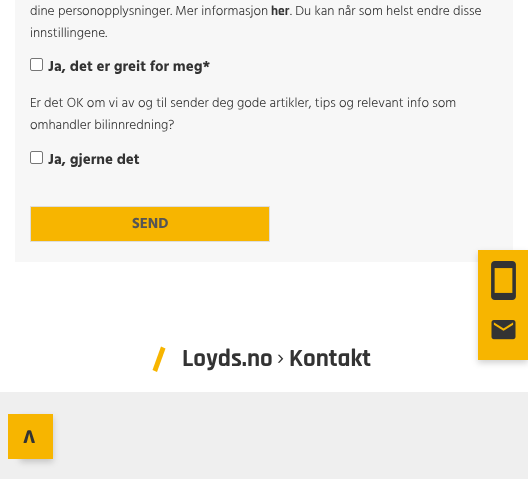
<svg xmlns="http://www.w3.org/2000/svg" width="528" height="479">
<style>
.a{font:300 13.5px Hind;fill:#333}
.b{font:bold 13.5px Rajdhani;fill:#333}
.c{font:bold 15px Hind;fill:#333}
.d{font:bold 15px Hind;fill:#555}
.e{font:bold 25px Rajdhani;fill:#333}
.f{font:300 25px Hind;fill:#333}
.g{font:bold 30px Rajdhani;fill:#333}
</style>
<rect width="100%" height="100%" fill="#fff"/>
<path fill="#f7f7f7" d="M15 0h498v262H15z"/>
<rect fill="#fff" stroke="#767676" x="30.5" y="58.5" width="12" height="12" rx="1.5"/>
<rect fill="#fff" stroke="#767676" x="30.5" y="151.5" width="12" height="12" rx="1.5"/>
<path fill="#f7b500" stroke="#ddd" d="M30.5 206.5h239v35H30.5z"/>
<path fill="#f7b500" d="M161 346.5l4.5 2l-8.5 23.5l-4.5-2z"/>
<path fill="#efefef" d="M0 392h528v87H0z"/>
<path fill="#0000002e" filter="blur(3px)" d="M20 417h33v45H20z"/>
<path fill="#f7b500" d="M8 414h45v45H8z"/>
<path fill="#0000002e" filter="blur(3px)" d="M478 253h50v110H478z"/>
<path fill="#f7b500" d="M478 250h50v110H478z"/>
<image href="1.png" x="491" y="261" width="25" height="39"/>
<image href="2.png" x="491" y="320" width="25" height="20"/>
<text class="a" x="30" y="15">dine personopplysninger. Mer informasjon</text>
<text class="b" x="271" y="15">her</text>
<text class="a" x="290" y="15">. Du kan når som helst endre disse</text>
<text class="a" x="30" y="37">innstillingene.</text>
<text class="c" x="48" y="71">Ja, det er greit for meg*</text>
<text class="a" x="30" y="107">Er det OK om vi av og til sender deg gode artikler, tips og relevant info som</text>
<text class="a" x="30" y="129">omhandler bilinnredning?</text>
<text class="c" x="48" y="164">Ja, gjerne det</text>
<text class="d" x="132" y="228">SEND</text>
<text class="e" x="182" y="366">Loyds.no</text>
<text class="f" x="277" y="365">›</text>
<text class="e" x="289" y="366">Kontakt</text>
<text class="g" x="39" y="445" transform="rotate(-90 39 445)">&gt;</text>
</svg>
